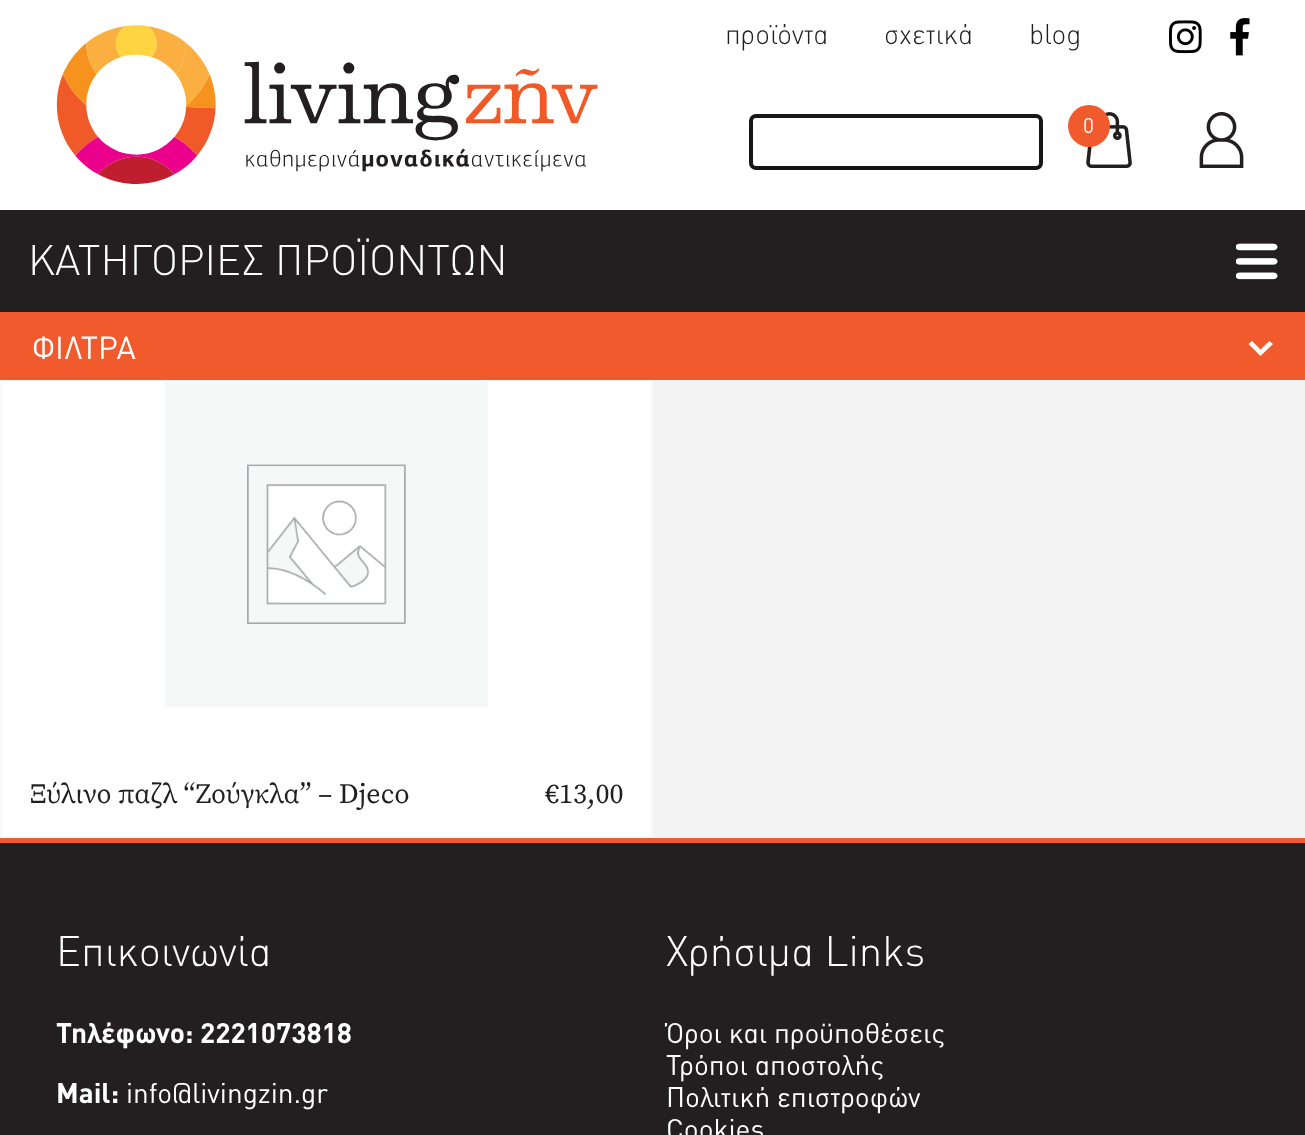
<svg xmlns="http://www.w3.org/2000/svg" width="1305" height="1135">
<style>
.a{font:300 28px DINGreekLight;fill:#231f20}
.b{font:21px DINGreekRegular;fill:#fff}
.c{font:300 42px DINGreekLight;fill:#fff}
.d{font:31.5px DINGreekRegular;fill:#fff}
.e{font:28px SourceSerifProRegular;fill:#231f20}
.f{font:bold 28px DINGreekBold;fill:#fff}
.g{font:28px DINGreekRegular;fill:#fff}
</style>
<rect width="100%" height="100%" fill="#fff"/>
<image href="1.png" x="56" y="25" width="542" height="159"/>
<rect fill="none" stroke="#171717" stroke-width="4" x="751" y="116" width="290" height="52" rx="5"/>
<image href="2.png" x="1086" y="112" width="46" height="56"/>
<circle fill="#f15a2c" cx="1089" cy="126" r="21"/>
<image href="3.png" x="1199" y="112" width="45" height="56"/>
<image href="4.png" x="1169" y="20" width="33" height="34"/>
<image href="5.png" x="1230" y="18" width="20" height="38"/>
<path fill="#231f20" d="M0 210h1305v102H0z"/>
<path fill="#f15a2c" d="M0 312h1305v68H0z"/>
<image href="6.png" x="1236" y="243" width="42" height="37"/>
<path fill="#f3f3f4" d="M653 380h652v458H653z"/>
<path fill="#fff" d="M1269.5 341l3.5 3l-12.5 12l-12-12l3.5-3l8.5 8.5z"/>
<path fill="none" stroke="#f9f9f9" stroke-width="2" d="M1 381h651v456H1z"/>
<image href="7.png" x="164" y="382" width="324" height="325"/>
<path fill="#231f20" d="M0 843h1305v292H0z"/>
<path fill="#f15a2c" d="M0 838h1305v5H0z"/>
<text class="a" x="725" y="44">προϊόντα</text>
<text class="a" x="884" y="44">σχετικά</text>
<text class="a" x="1029" y="44">blog</text>
<text class="b" x="1083" y="133">0</text>
<text class="c" x="28" y="275">ΚΑΤΗΓΟΡΙΕΣ ΠΡΟΪΟΝΤΩΝ</text>
<text class="d" x="32" y="359">ΦΙΛΤΡΑ</text>
<text class="e" x="30" y="803">Ξύλινο παζλ “Ζούγκλα” – Djeco</text>
<text class="e" x="545" y="803">€13,00</text>
<text class="c" x="56" y="966">Επικοινωνία</text>
<text class="f" x="56" y="1043">Τηλέφωνο: 2221073818</text>
<text class="f" x="56" y="1103">Mail:</text>
<text class="g" x="126" y="1103">info@livingzin.gr</text>
<text class="c" x="666" y="966">Χρήσιμα Links</text>
<text class="g" x="666" y="1043">Όροι και προϋποθέσεις</text>
<text class="g" x="666" y="1075">Τρόποι αποστολής</text>
<text class="g" x="666" y="1107">Πολιτική επιστροφών</text>
<text class="g" x="666" y="1139">Cookies</text>
</svg>
